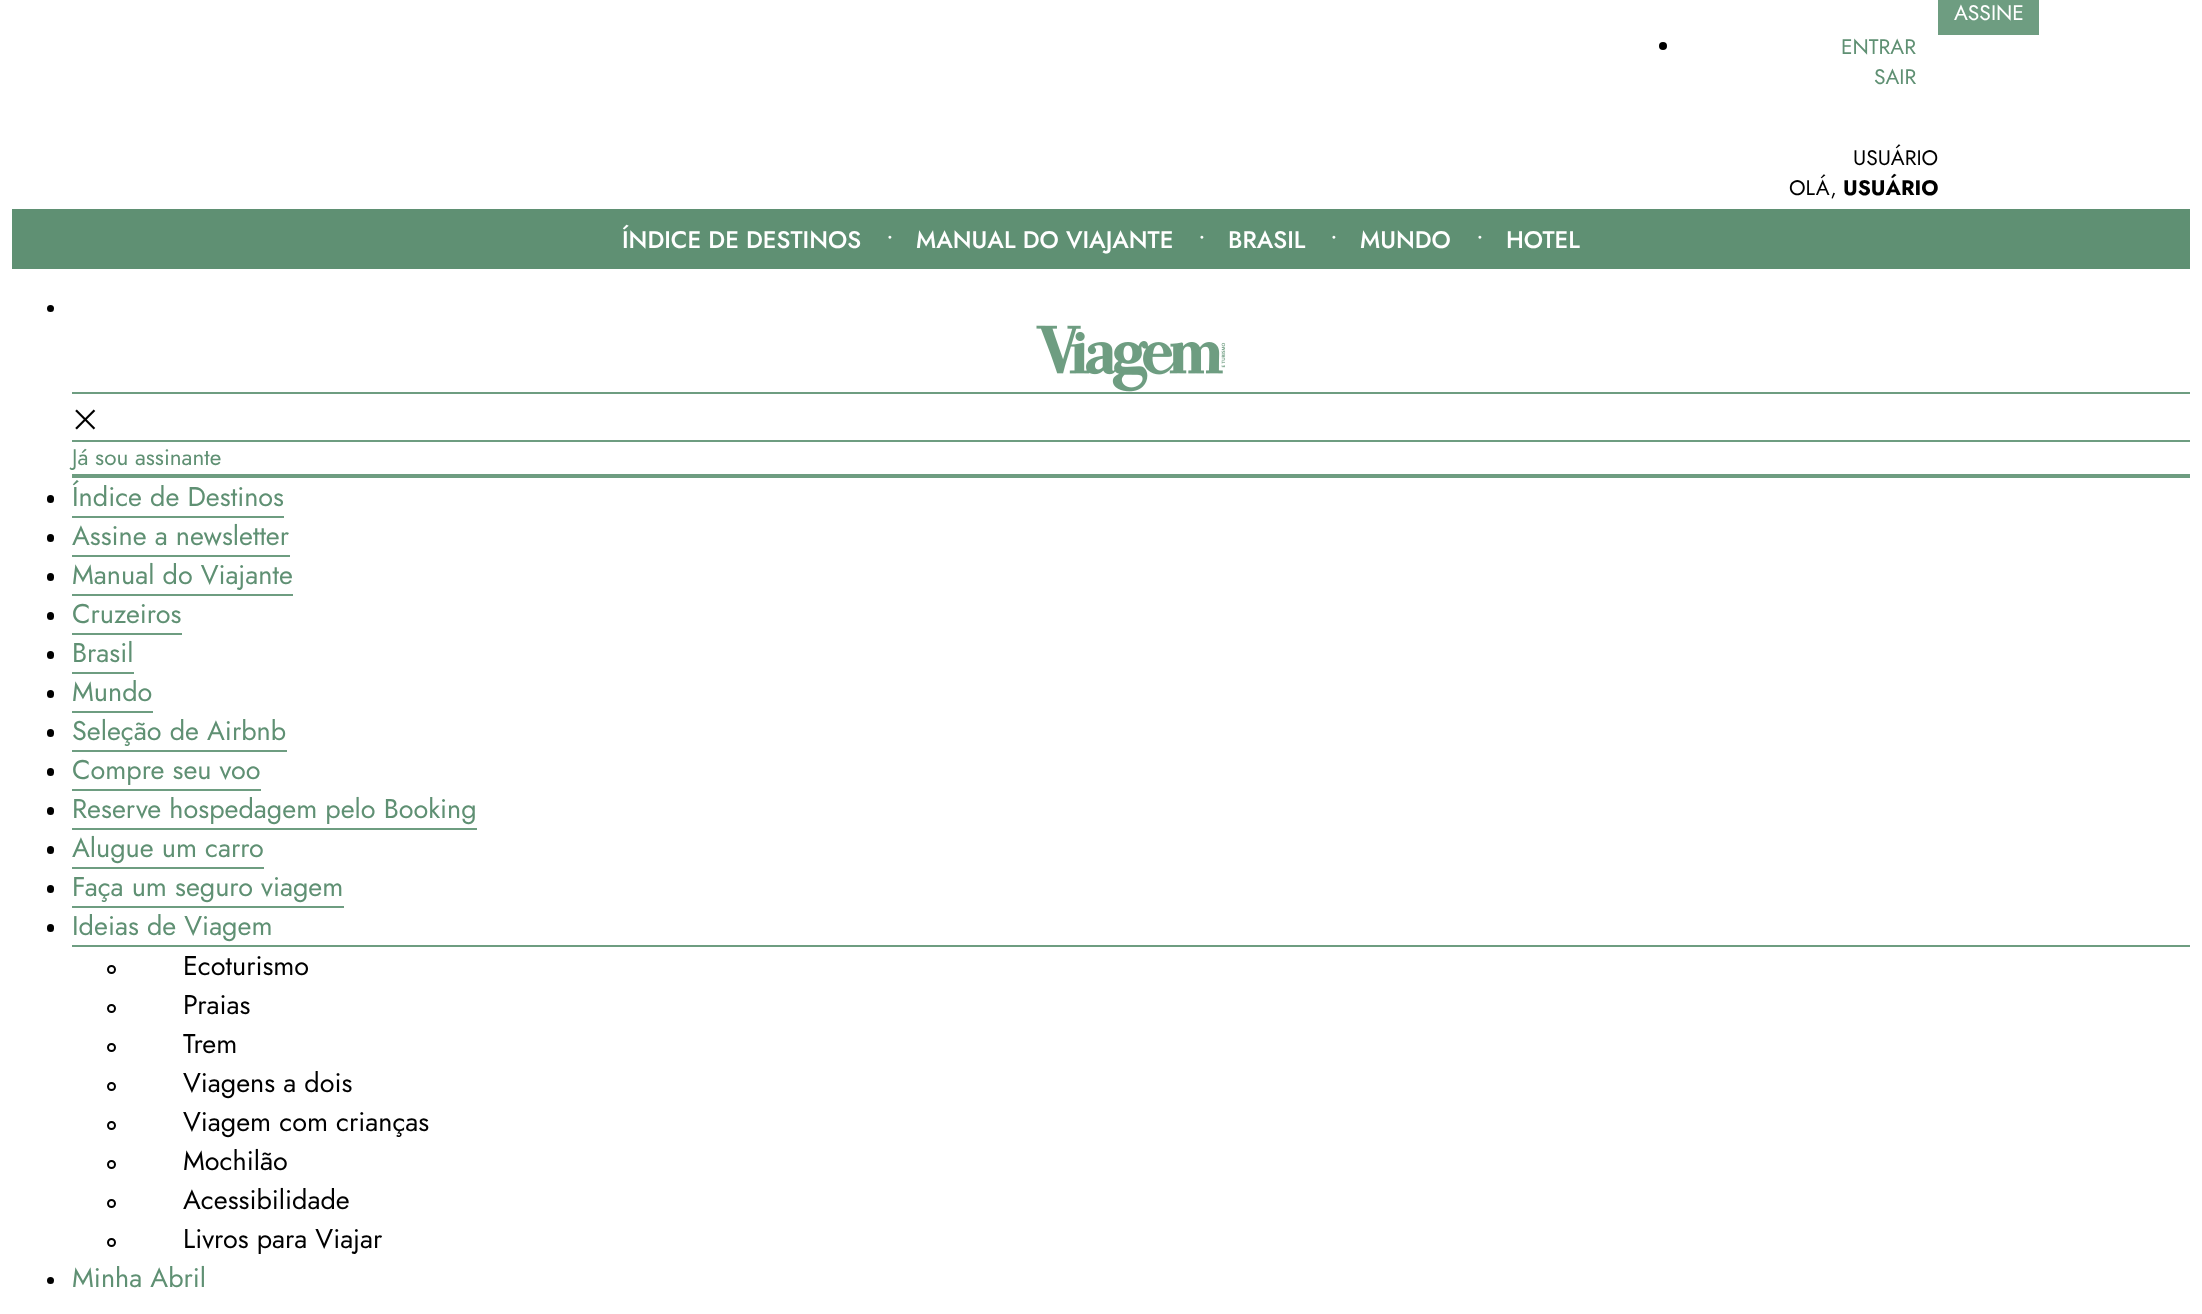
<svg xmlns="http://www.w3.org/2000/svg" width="2202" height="1314">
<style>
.a{font:21px Jost;fill:#fff}
.b{font:21px Jost;fill:#5f9073}
.c{font:21px Jost;fill:#000}
.d{font:bold 21px Jost;fill:#000}
.e{font:500 24px Jost;fill:#fff}
.f{font:26px Jost;fill:#fff}
.g{font:300 45px Jost;fill:#000}
.h{font:22.5px Jost;fill:#5f9073}
.i{font:27px Jost;fill:#5f9073}
.j{font:27px Jost;fill:#000}
</style>
<rect width="100%" height="100%" fill="#fff"/>
<path fill="#6e9d81" d="M1938 0h101v35H1938z"/>
<circle fill="#000" cx="1663" cy="46" r="4"/>
<path fill="#5f9073" d="M12 209h2178v60H12z"/>
<path fill="#6e9d81" d="M72 440h2118v2H72z"/>
<circle fill="#000" cx="50.5" cy="308.5" r="3.5"/>
<path fill="#6e9d81" d="M72 392h2118v2H72z"/>
<image href="1.png" x="1036" y="325" width="190" height="67"/>
<path fill="#6e9d81" d="M72 474h2118v4H72z"/>
<rect fill="#000" x="47" y="495" width="7" height="8" rx="3.5"/>
<path fill="#6e9d81" d="M72 516h212v2H72z"/>
<rect fill="#000" x="47" y="534" width="7" height="8" rx="3.5"/>
<path fill="#6e9d81" d="M72 555h218v2H72z"/>
<rect fill="#000" x="47" y="573" width="7" height="8" rx="3.5"/>
<path fill="#6e9d81" d="M72 594h221v2H72z"/>
<rect fill="#000" x="47" y="612" width="7" height="8" rx="3.5"/>
<path fill="#6e9d81" d="M72 633h110v2H72z"/>
<rect fill="#000" x="47" y="651" width="7" height="8" rx="3.5"/>
<path fill="#6e9d81" d="M72 672h62v2H72z"/>
<rect fill="#000" x="47" y="690" width="7" height="8" rx="3.5"/>
<path fill="#6e9d81" d="M72 711h81v2H72z"/>
<rect fill="#000" x="47" y="729" width="7" height="8" rx="3.5"/>
<path fill="#6e9d81" d="M72 750h215v2H72z"/>
<rect fill="#000" x="47" y="768" width="7" height="8" rx="3.5"/>
<path fill="#6e9d81" d="M72 789h189v2H72z"/>
<rect fill="#000" x="47" y="807" width="7" height="8" rx="3.5"/>
<path fill="#6e9d81" d="M72 828h405v2H72z"/>
<rect fill="#000" x="47" y="846" width="7" height="8" rx="3.5"/>
<path fill="#6e9d81" d="M72 867h192v2H72z"/>
<rect fill="#000" x="47" y="885" width="7" height="8" rx="3.5"/>
<path fill="#6e9d81" d="M72 906h272v2H72z"/>
<rect fill="#000" x="47" y="924" width="7" height="8" rx="3.5"/>
<path fill="#6e9d81" d="M72 945h2118v2H72z"/>
<circle fill="none" stroke="#000" stroke-width="2" cx="111.5" cy="969.5" r="3.5"/>
<circle fill="none" stroke="#000" stroke-width="2" cx="111.5" cy="1008.5" r="3.5"/>
<circle fill="none" stroke="#000" stroke-width="2" cx="111.5" cy="1047.5" r="3.5"/>
<circle fill="none" stroke="#000" stroke-width="2" cx="111.5" cy="1086.5" r="3.5"/>
<circle fill="none" stroke="#000" stroke-width="2" cx="111.5" cy="1125.5" r="3.5"/>
<circle fill="none" stroke="#000" stroke-width="2" cx="111.5" cy="1164.5" r="3.5"/>
<circle fill="none" stroke="#000" stroke-width="2" cx="111.5" cy="1203.5" r="3.5"/>
<circle fill="none" stroke="#000" stroke-width="2" cx="111.5" cy="1242.5" r="3.5"/>
<circle fill="#000" cx="50.5" cy="1280.5" r="3.5"/>
<text class="a" x="1954" y="20">ASSINE</text>
<text class="b" x="1841" y="54">ENTRAR</text>
<text class="b" x="1874" y="84">SAIR</text>
<text class="c" x="1853" y="165">USUÁRIO</text>
<text class="c" x="1789" y="195">OLÁ,</text>
<text class="d" x="1843" y="195">USUÁRIO</text>
<text class="e" x="622" y="248">ÍNDICE DE DESTINOS</text>
<text class="f" x="886" y="248">•</text>
<text class="e" x="916" y="248">MANUAL DO VIAJANTE</text>
<text class="f" x="1198" y="248">•</text>
<text class="e" x="1228" y="248">BRASIL</text>
<text class="f" x="1330" y="248">•</text>
<text class="e" x="1360" y="248">MUNDO</text>
<text class="f" x="1476" y="248">•</text>
<text class="e" x="1506" y="248">HOTEL</text>
<text class="g" x="72" y="431">×</text>
<text class="h" x="72" y="465">Já sou assinante</text>
<text class="i" x="72" y="506">Índice de Destinos</text>
<text class="i" x="72" y="545">Assine a newsletter</text>
<text class="i" x="72" y="584">Manual do Viajante</text>
<text class="i" x="72" y="623">Cruzeiros</text>
<text class="i" x="72" y="662">Brasil</text>
<text class="i" x="72" y="701">Mundo</text>
<text class="i" x="72" y="740">Seleção de Airbnb</text>
<text class="i" x="72" y="779">Compre seu voo</text>
<text class="i" x="72" y="818">Reserve hospedagem pelo Booking</text>
<text class="i" x="72" y="857">Alugue um carro</text>
<text class="i" x="72" y="896">Faça um seguro viagem</text>
<text class="i" x="72" y="935">Ideias de Viagem</text>
<text class="j" x="183" y="975">Ecoturismo</text>
<text class="j" x="183" y="1014">Praias</text>
<text class="j" x="183" y="1053">Trem</text>
<text class="j" x="183" y="1092">Viagens a dois</text>
<text class="j" x="183" y="1131">Viagem com crianças</text>
<text class="j" x="183" y="1170">Mochilão</text>
<text class="j" x="183" y="1209">Acessibilidade</text>
<text class="j" x="183" y="1248">Livros para Viajar</text>
<text class="i" x="72" y="1287">Minha Abril</text>
</svg>
